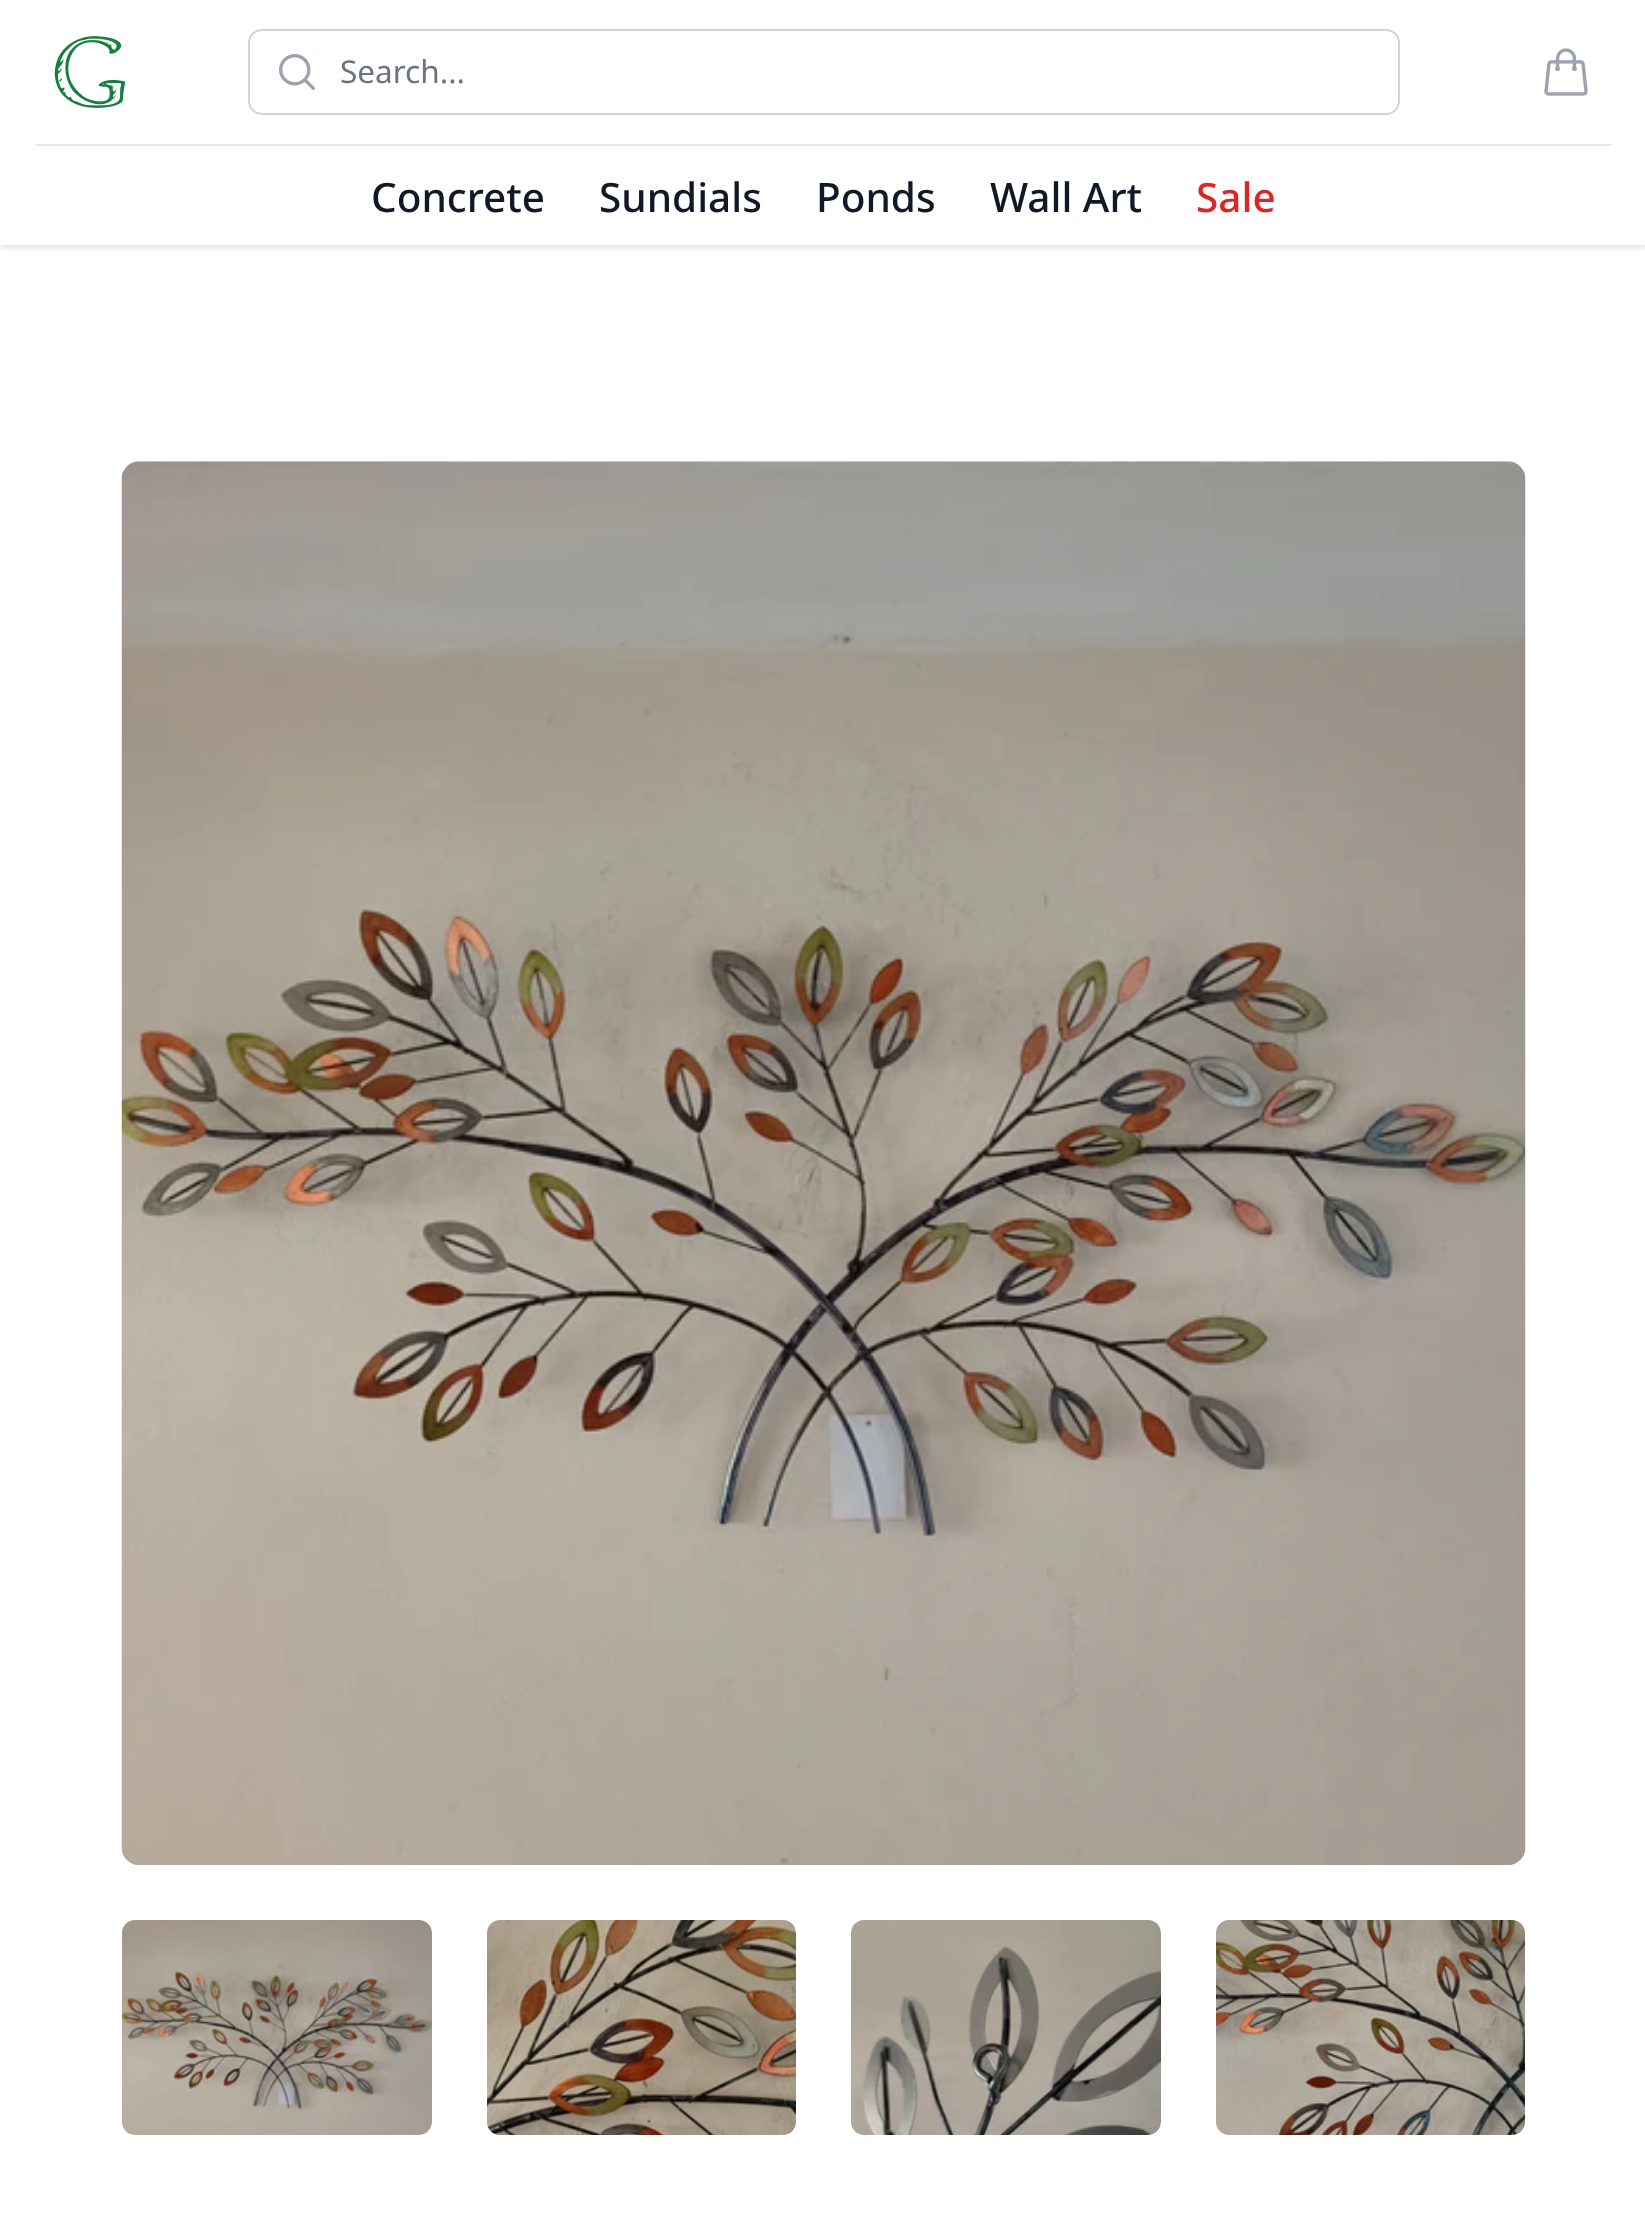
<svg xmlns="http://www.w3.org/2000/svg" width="1645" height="2239">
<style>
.a{font:31.5px Noto Sans;fill:#6b7280}
.b{font:500 40.5px Noto Sans;fill:#111827}
.c{font:500 40.5px Noto Sans;fill:#dc2626}
</style>
<defs>
<clipPath id="clip1"><path d="M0 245h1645v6H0z"/></clipPath>
</defs>
<rect width="100%" height="100%" fill="#fff"/>
<g clip-path="url(#clip1)">
<path fill="#0000001a" filter="blur(3.5px)" d="M0 2h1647v246H0z"/>
</g>
<image href="1.png" x="54" y="36" width="72" height="72"/>
<rect fill="none" stroke="#d1d5db" stroke-width="2" x="249" y="30" width="1150" height="84" rx="13"/>
<image href="2.png" x="279" y="54" width="36" height="36"/>
<image href="3.png" x="1544" y="48" width="44" height="48"/>
<path fill="#e5e7eb" d="M36 144h1575v2H36z"/>
<image href="4.png" x="121" y="461" width="1405" height="1405"/>
<image href="5.png" x="122" y="1920" width="310" height="215"/>
<rect fill="none" stroke="#fff" stroke-width="5" x="119.5" y="1917.5" width="315" height="220" rx="15.5"/>
<image href="6.png" x="487" y="1920" width="309" height="215"/>
<rect fill="none" stroke="#fff" stroke-width="5" x="484.5" y="1917.5" width="314" height="220" rx="15.5"/>
<image href="7.png" x="851" y="1920" width="310" height="215"/>
<rect fill="none" stroke="#fff" stroke-width="5" x="848.5" y="1917.5" width="315" height="220" rx="15.5"/>
<image href="8.png" x="1216" y="1920" width="309" height="215"/>
<rect fill="none" stroke="#fff" stroke-width="5" x="1213.5" y="1917.5" width="314" height="220" rx="15.5"/>
<text class="a" x="340" y="83">Search...</text>
<text class="b" x="371" y="212">Concrete</text>
<text class="b" x="599" y="212">Sundials</text>
<text class="b" x="816" y="212">Ponds</text>
<text class="b" x="990" y="212">Wall Art</text>
<text class="c" x="1196" y="212">Sale</text>
</svg>
